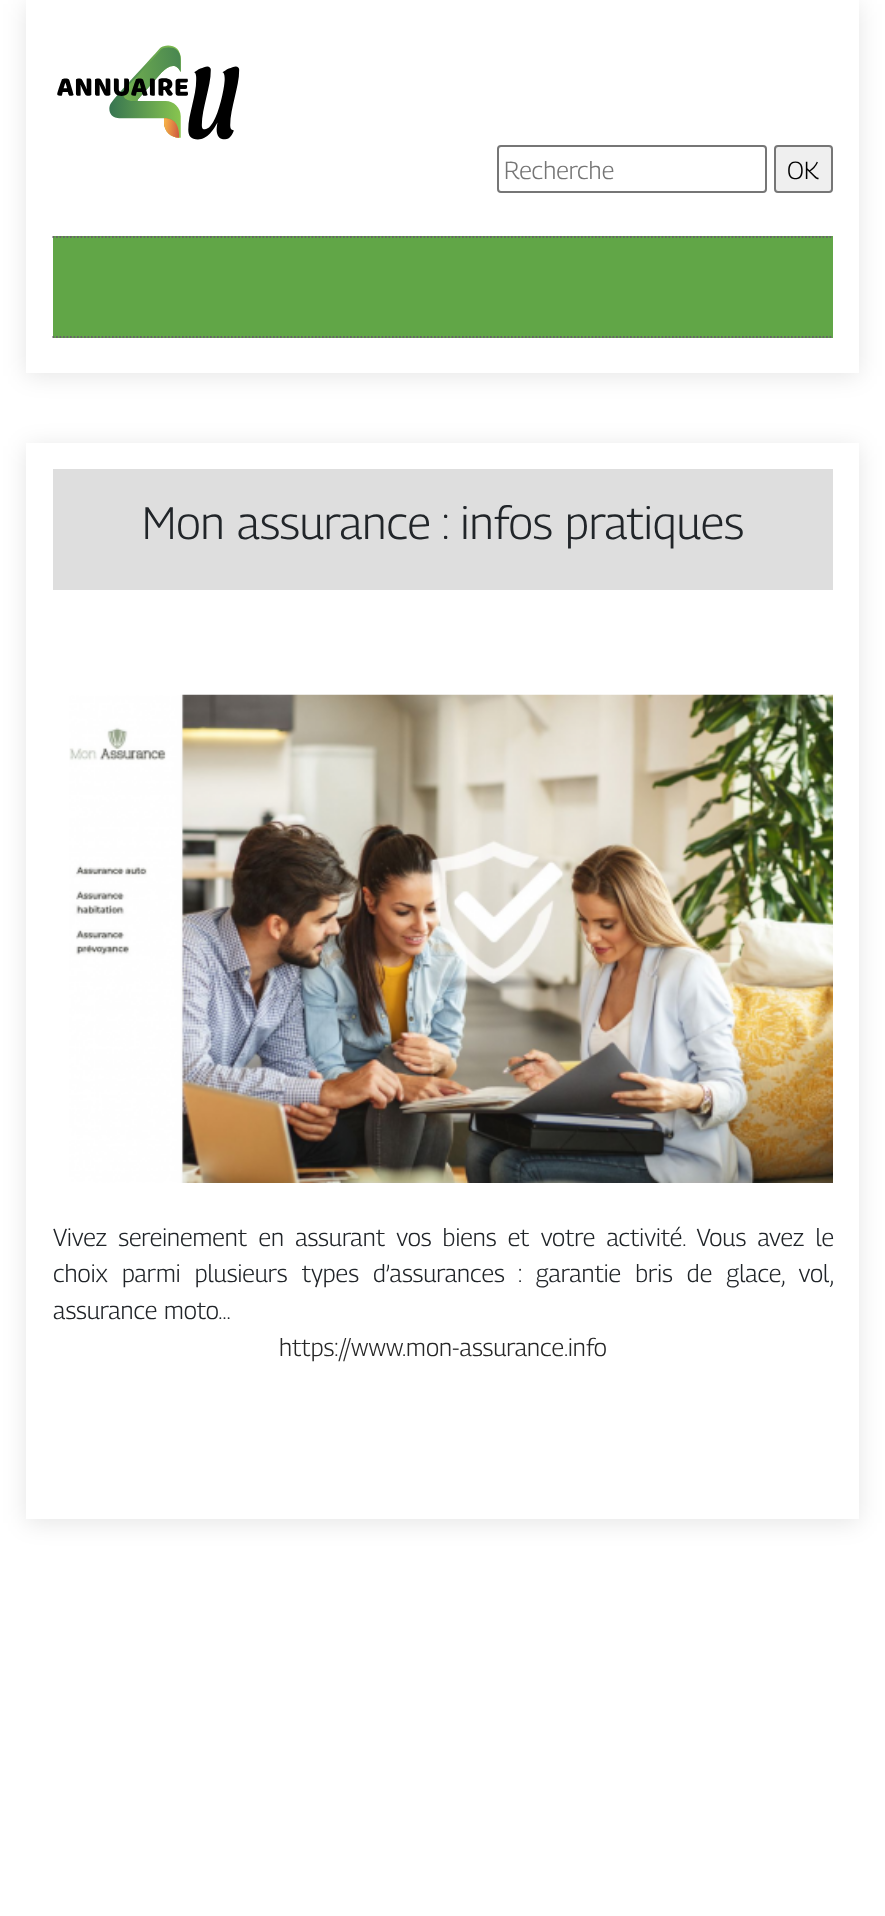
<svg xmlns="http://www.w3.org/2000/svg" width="885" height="1916">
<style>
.a{font:100 24.5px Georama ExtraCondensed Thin;fill:#757575}
.b{font:100 24.5px Georama ExtraCondensed Thin;fill:#000}
.c{font:100 45.5px Georama ExtraCondensed Thin;fill:#212529}
.d{font:100 24.5px Georama ExtraCondensed Thin;fill:#212529}
.e{font:100 24.5px Georama ExtraCondensed Thin;fill:#272727}
</style>
<rect width="100%" height="100%" fill="#fff"/>
<path fill="#0000001a" filter="blur(11.5px)" d="M26 4h833v372H26z"/>
<path fill="#fff" d="M26 0h833v373H26z"/>
<image href="1.png" x="57" y="45" width="183" height="95"/>
<rect fill="none" stroke="#767676" stroke-width="2" x="498" y="146" width="268" height="46" rx="3"/>
<rect fill="#efefef" stroke="#767676" stroke-width="2" x="775" y="146" width="57" height="46" rx="3"/>
<path fill="#61a647" d="M53 236h780v102H53z"/>
<path fill="none" stroke="#666" stroke-width="1.8" stroke-dasharray="1.75 1.75" d="M52.5 237h780.5"/>
<path fill="none" stroke="#666" stroke-width="1.8" stroke-dasharray="1.75 1.75" d="M52.5 337h780.5"/>
<path fill="#0000001a" filter="blur(11.5px)" d="M26 446h833v1077H26z"/>
<path fill="#fff" d="M26 443h833v1076H26z"/>
<path fill="#dedede" d="M53 469h780v121H53z"/>
<image href="2.png" x="69" y="694" width="764" height="489"/>
<text class="a" x="504" y="179">Recherche</text>
<text class="b" x="787" y="179">OK</text>
<text class="c" x="142" y="539">Mon assurance : infos pratiques</text>
<text class="d" x="53" y="1246" word-spacing="4.6">Vivez sereinement en assurant vos biens et votre activité. Vous avez le</text>
<text class="d" x="53" y="1282" word-spacing="7.5">choix parmi plusieurs types d’assurances : garantie bris de glace, vol,</text>
<text class="d" x="53" y="1319">assurance moto…</text>
<text class="e" x="279" y="1356">https://www.mon-assurance.info</text>
</svg>
